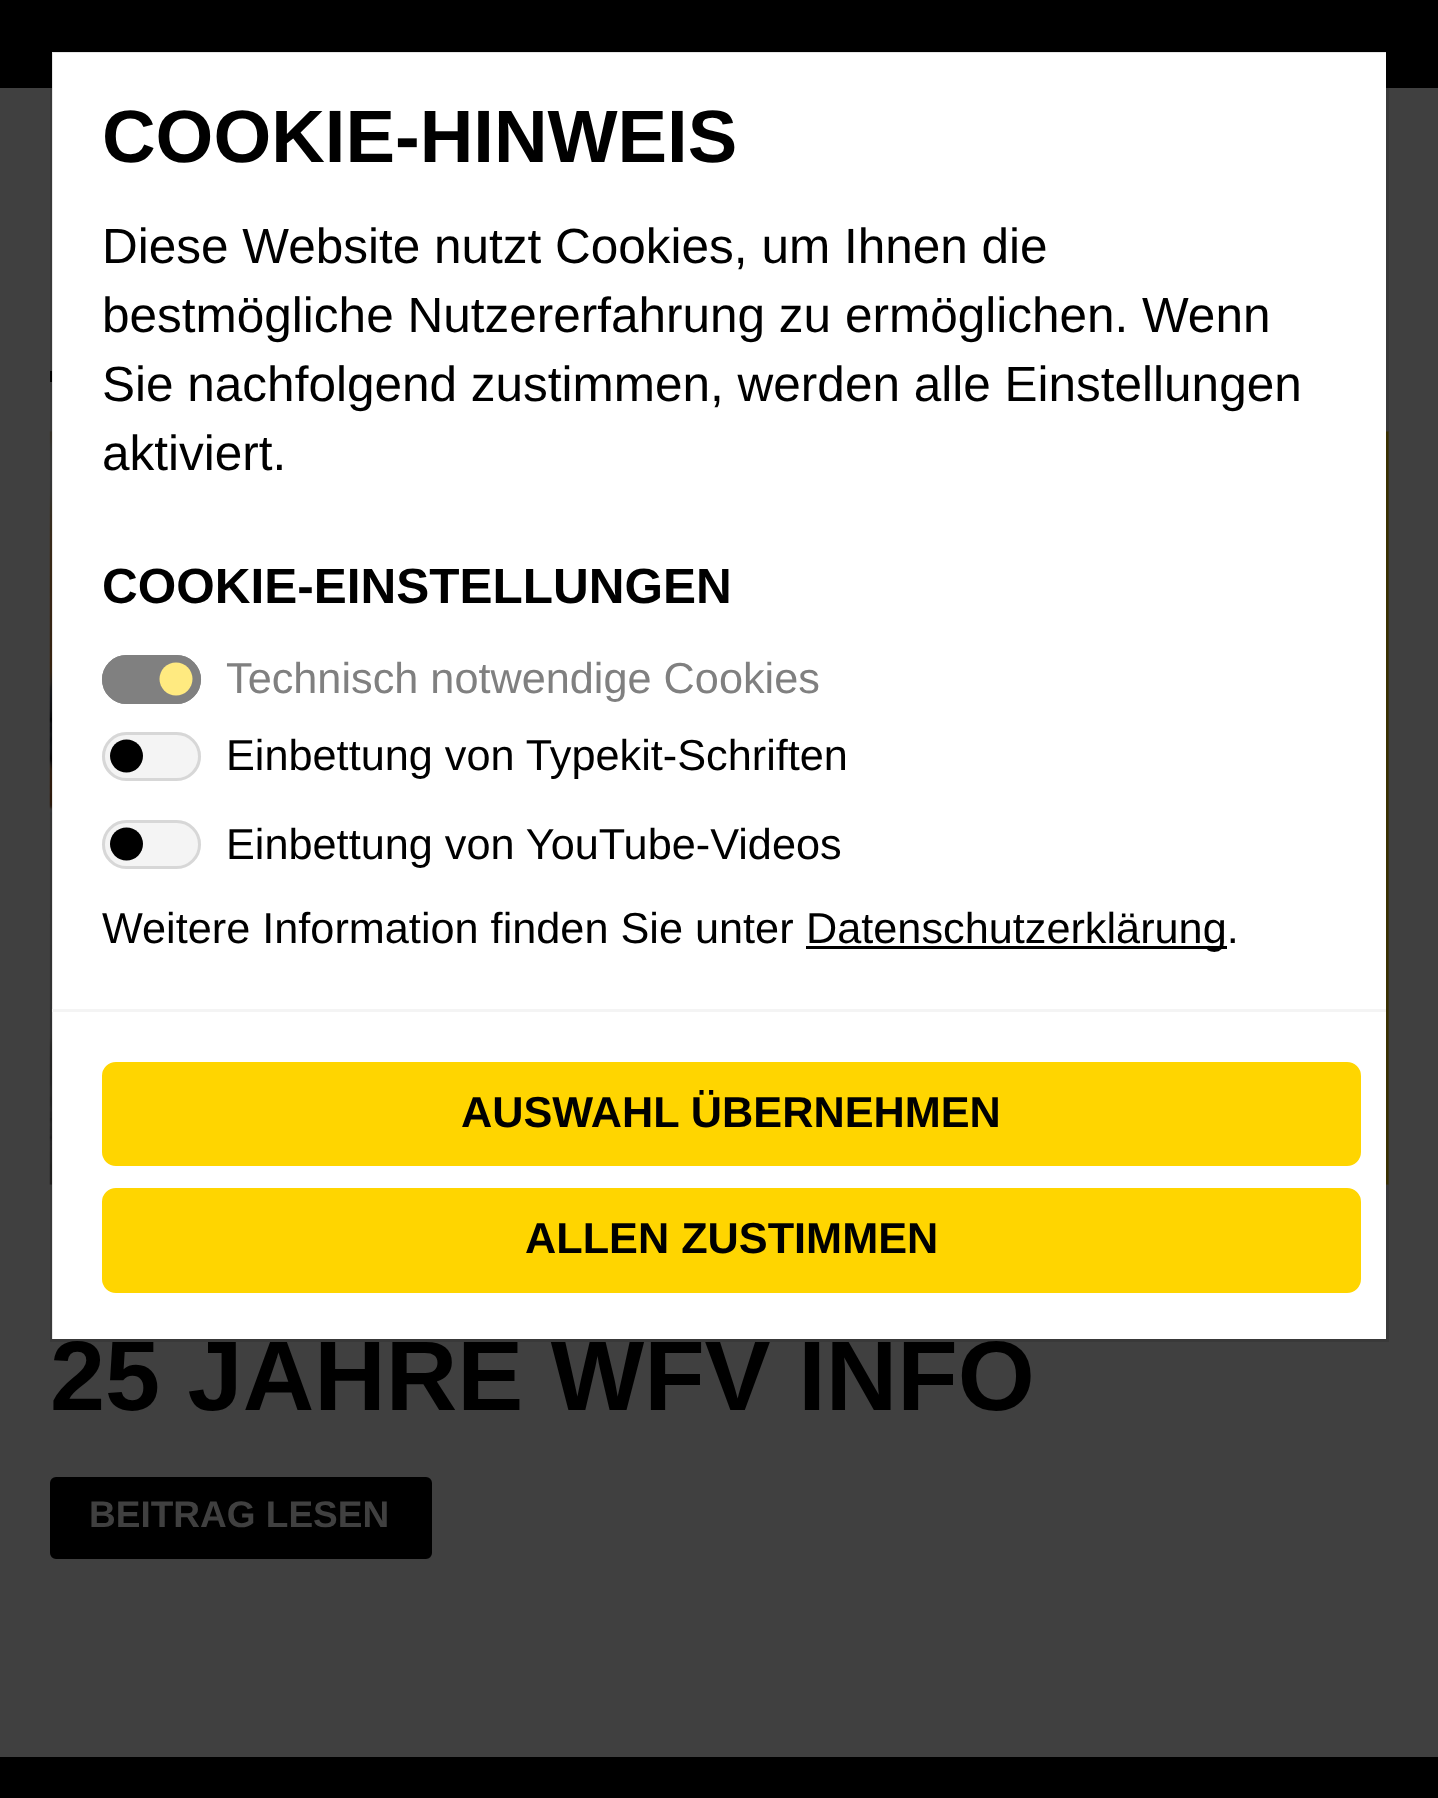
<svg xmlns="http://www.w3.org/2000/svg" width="1438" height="1798">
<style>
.a{font:bold 99px Liberation Sans;fill:#000}
.b{font:43.25px Liberation Sans;fill:#808080}
.c{font:43.25px Liberation Sans;fill:#000}
.d{font:49.5px Liberation Sans;fill:#000}
.e{font:bold 74.25px Liberation Sans;fill:#000}
.f{font:bold 49.5px Liberation Sans;fill:#000}
.g{font:bold 43.25px Liberation Sans;fill:#000}
.h{font:bold 37px Liberation Sans;fill:#404040}
</style>
<rect width="100%" height="100%" fill="#404040"/>
<path fill="#000" d="M0 0h1438v88H0z"/>
<image href="1.png" x="49" y="431" width="1340" height="754"/>
<path fill="#fff" d="M52 52h1334v1287H52z"/>
<path fill="#000" d="M50 371h2v11H50z"/>
<rect fill="#000" stroke="#000" stroke-width="3" x="51.5" y="1478.5" width="379" height="79" rx="4.5"/>
<path fill="#000" d="M0 1757h1438v41H0z"/>
<text class="a" x="50" y="1410">25 JAHRE WFV INFO</text>
<path fill="none" stroke="#0000001a" stroke-width="3" d="M51.5 51.5h1336v1289H51.5z"/>
<text class="b" x="226" y="693">Technisch notwendige Cookies</text>
<rect fill="#808080" x="102" y="655" width="99" height="49" rx="24.5"/>
<circle fill="#ffea80" cx="176" cy="679" r="16.5"/>
<rect fill="none" stroke="#808080" stroke-width="3" x="103.5" y="656.5" width="96" height="46" rx="23"/>
<path fill="#000" d="M806 946h421v3H806z"/>
<text class="c" x="806" y="943">Datenschutzerklärung.</text>
<text class="c" x="102" y="943">Weitere Information finden Sie unter</text>
<text class="c" x="226" y="859">Einbettung von YouTube-Videos</text>
<text class="c" x="226" y="770">Einbettung von Typekit-Schriften</text>
<text class="d" x="102" y="470">aktiviert.</text>
<text class="d" x="102" y="401">Sie nachfolgend zustimmen, werden alle Einstellungen</text>
<text class="d" x="102" y="332">bestmögliche Nutzererfahrung zu ermöglichen. Wenn</text>
<text class="d" x="102" y="263">Diese Website nutzt Cookies, um Ihnen die</text>
<text class="e" x="102" y="162">COOKIE-HINWEIS</text>
<rect fill="#f4f4f4" x="102" y="820" width="99" height="49" rx="24.5"/>
<circle fill="#000" cx="126.5" cy="844" r="16.5"/>
<rect fill="none" stroke="#d7d7d7" stroke-width="3" x="103.5" y="821.5" width="96" height="46" rx="23"/>
<rect fill="#f4f4f4" x="102" y="732" width="99" height="49" rx="24.5"/>
<circle fill="#000" cx="126.5" cy="756" r="16.5"/>
<rect fill="none" stroke="#d7d7d7" stroke-width="3" x="103.5" y="733.5" width="96" height="46" rx="23"/>
<text class="f" x="102" y="603">COOKIE-EINSTELLUNGEN</text>
<rect fill="#ffd500" stroke="#ffd500" stroke-width="3" x="103.5" y="1189.5" width="1256" height="102" rx="12.5"/>
<text class="g" x="525" y="1253">ALLEN ZUSTIMMEN</text>
<rect fill="#ffd500" stroke="#ffd500" stroke-width="3" x="103.5" y="1063.5" width="1256" height="101" rx="12.5"/>
<text class="g" x="461" y="1127">AUSWAHL ÜBERNEHMEN</text>
<path fill="#f4f4f4" d="M52 1009h1334v3H52z"/>
<text class="h" x="89" y="1527">BEITRAG LESEN</text>
</svg>
